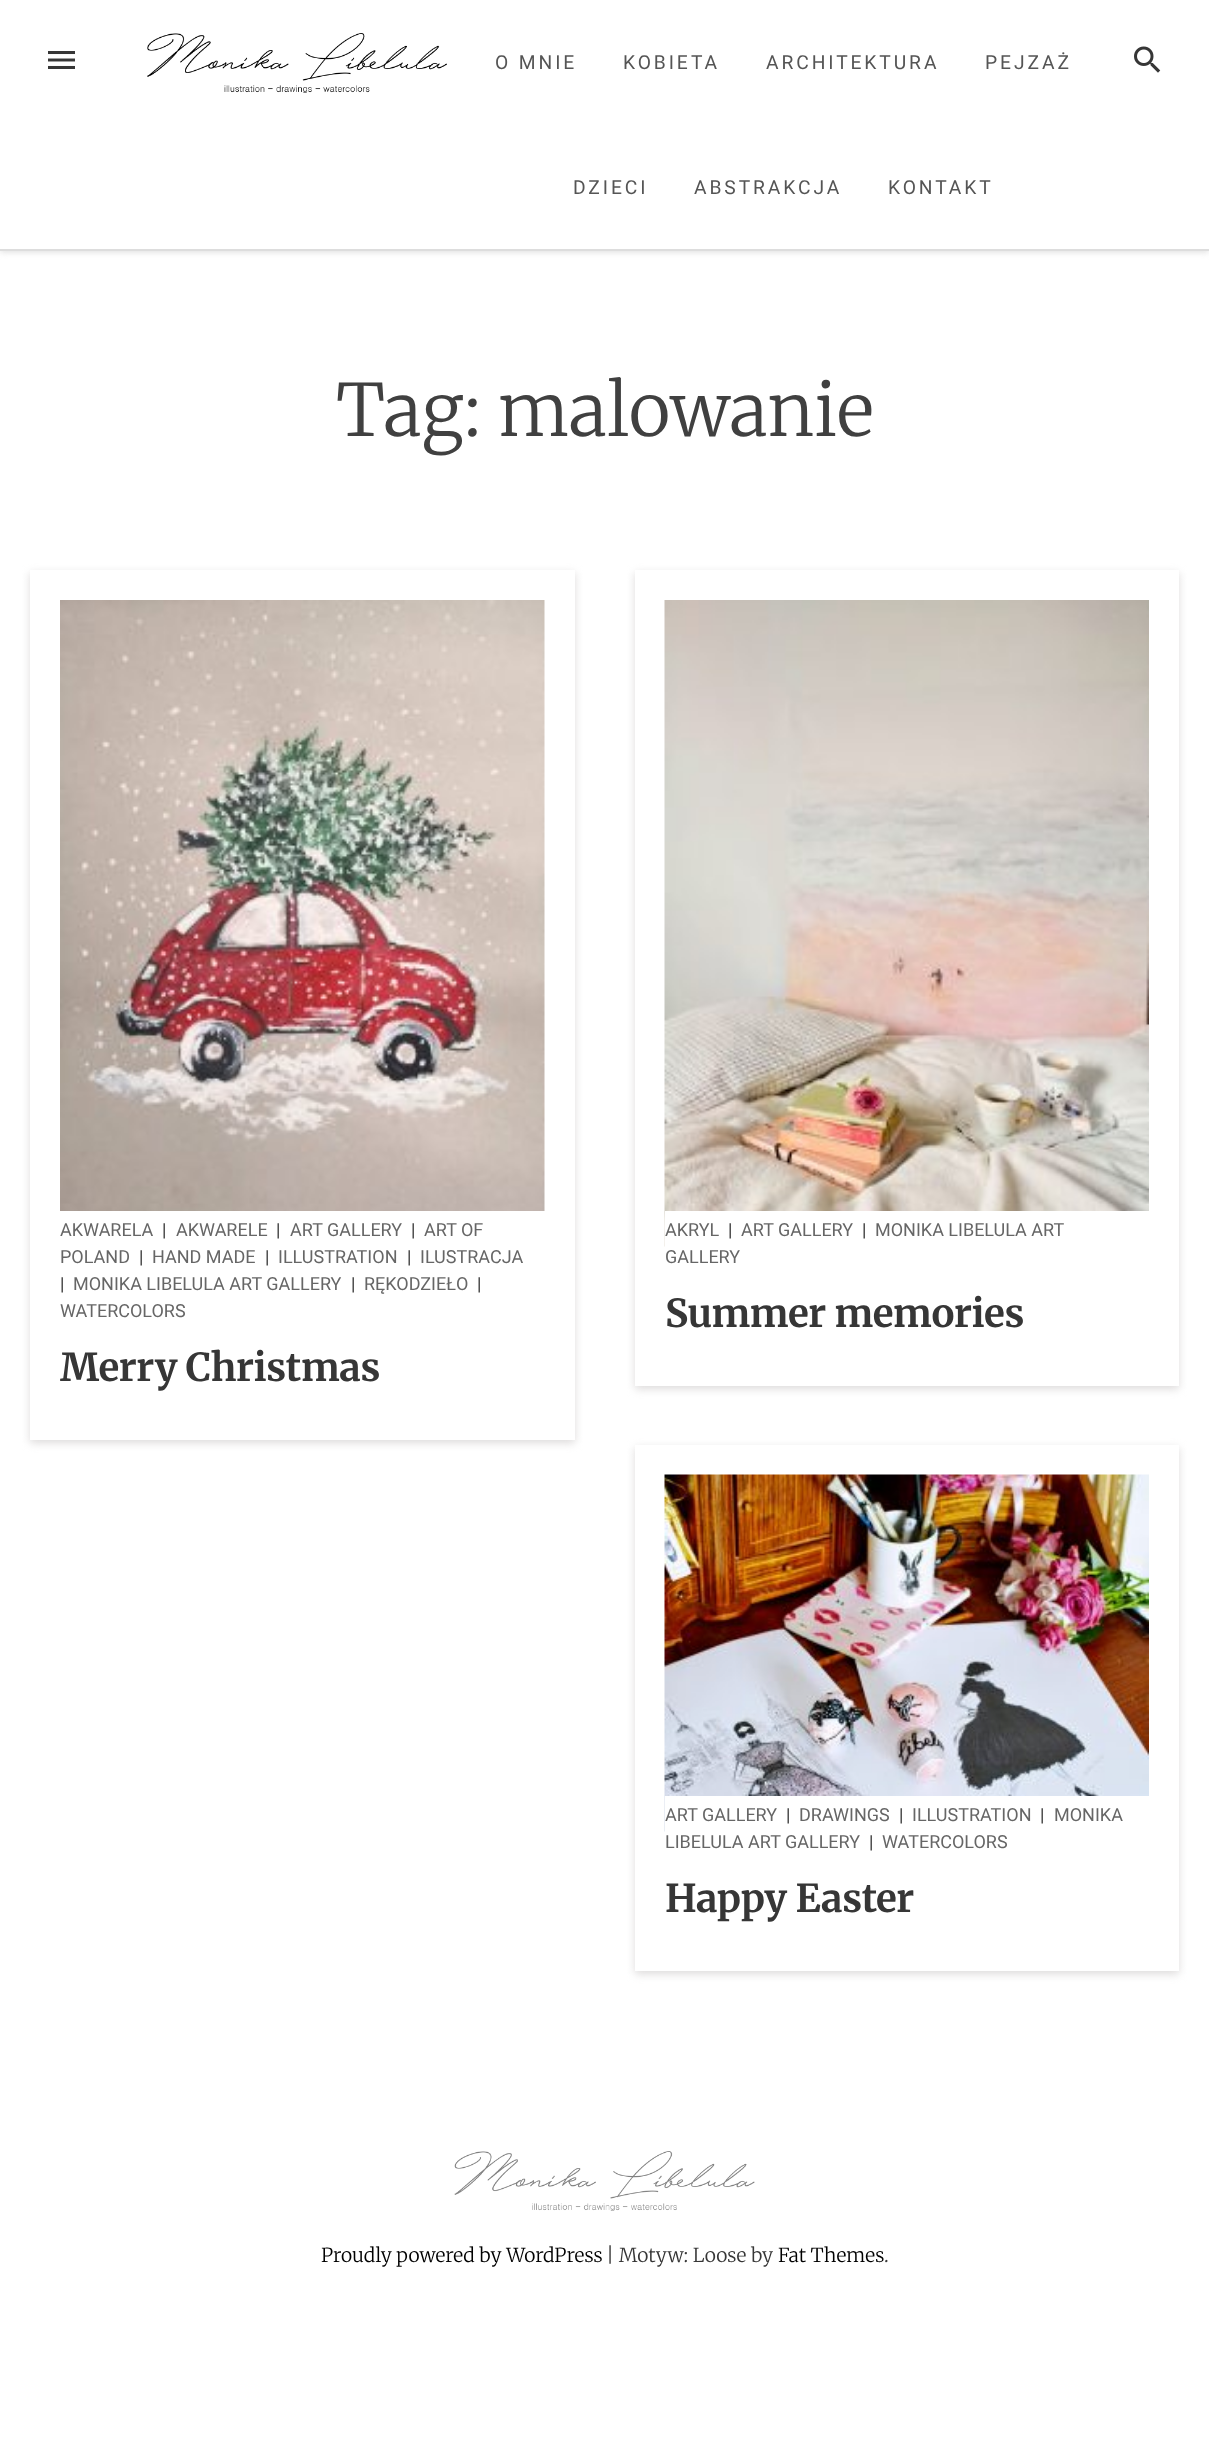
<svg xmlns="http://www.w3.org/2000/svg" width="1209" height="2458">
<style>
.a{font:19.25px Roboto;letter-spacing:2.9px;fill:#555}
.b{font:300 72px Merriweather;fill:#404040}
.c{font:18px Roboto;fill:#666}
.d{font:18px Roboto;fill:#363636}
.e{font:bold 38.5px Merriweather;letter-spacing:-0.4px;fill:#363636}
.f{font:300 19.25px Merriweather;fill:#000}
.g{font:300 19.25px Merriweather;fill:#363636}
</style>
<defs>
<clipPath id="clip1"><path d="M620 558h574v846h-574zm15 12h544v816h-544z" clip-rule="evenodd"/></clipPath>
<clipPath id="clip2"><path d="M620 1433h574v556h-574zm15 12h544v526h-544z" clip-rule="evenodd"/></clipPath>
</defs>
<rect width="100%" height="100%" fill="#fff"/>
<path fill="#ddd" filter="blur(3px)" d="M0 2h1209v250H0z"/>
<path fill="#fff" d="M0 0h1209v249H0z"/>
<path fill="#ddd" d="M0 249h1209v2H0z"/>
<image href="1.png" x="48" y="51" width="27" height="18"/>
<image href="2.png" x="147" y="33" width="300" height="60"/>
<image href="3.png" x="1134" y="46" width="27" height="27"/>
<path fill="#dddbdb" filter="blur(4.5px)" d="M30 573h545v870H30z"/>
<path fill="#fff" d="M30 570h545v870H30z"/>
<image href="4.png" x="60" y="600" width="485" height="611"/>
<g clip-path="url(#clip1)">
<path fill="#dddbdb" filter="blur(4.5px)" d="M635 573h544v816H635z"/>
</g>
<image href="5.png" x="664" y="600" width="485" height="647"/>
<path fill="#fff" d="M665 1211h484v36H665z"/>
<g clip-path="url(#clip2)">
<path fill="#dddbdb" filter="blur(4.5px)" d="M635 1448h544v526H635z"/>
</g>
<image href="6.png" x="664" y="1474" width="485" height="358"/>
<path fill="#fff" d="M665 1796h484v36H665z"/>
<image href="7.png" x="454" y="2151" width="301" height="60"/>
<text class="a" x="495" y="69">O MNIE</text>
<text class="a" x="623" y="69">KOBIETA</text>
<text class="a" x="766" y="69">ARCHITEKTURA</text>
<text class="a" x="985" y="69">PEJZAŻ</text>
<text class="a" x="573" y="194">DZIECI</text>
<text class="a" x="694" y="194">ABSTRAKCJA</text>
<text class="a" x="888" y="194">KONTAKT</text>
<text class="b" x="336" y="436">Tag: malowanie</text>
<text class="c" x="60" y="1236">AKWARELA</text>
<text class="d" x="162" y="1236">|</text>
<text class="c" x="176" y="1236">AKWARELE</text>
<text class="d" x="276" y="1236">|</text>
<text class="c" x="290" y="1236">ART GALLERY</text>
<text class="d" x="411" y="1236">|</text>
<text class="c" x="424" y="1236">ART OF</text>
<text class="c" x="60" y="1263">POLAND</text>
<text class="d" x="139" y="1263">|</text>
<text class="c" x="152" y="1263">HAND MADE</text>
<text class="d" x="265" y="1263">|</text>
<text class="c" x="278" y="1263">ILLUSTRATION</text>
<text class="d" x="407" y="1263">|</text>
<text class="c" x="420" y="1263">ILUSTRACJA</text>
<text class="d" x="60" y="1290">|</text>
<text class="c" x="73" y="1290">MONIKA LIBELULA ART GALLERY</text>
<text class="d" x="351" y="1290">|</text>
<text class="c" x="364" y="1290">RĘKODZIEŁO</text>
<text class="d" x="477" y="1290">|</text>
<text class="c" x="60" y="1317">WATERCOLORS</text>
<text class="e" x="60" y="1381">Merry Christmas</text>
<text class="c" x="665" y="1236">AKRYL</text>
<text class="d" x="728" y="1236">|</text>
<text class="c" x="741" y="1236">ART GALLERY</text>
<text class="d" x="862" y="1236">|</text>
<text class="c" x="875" y="1236">MONIKA LIBELULA ART</text>
<text class="c" x="665" y="1263">GALLERY</text>
<text class="e" x="665" y="1327">Summer memories</text>
<text class="c" x="665" y="1821">ART GALLERY</text>
<text class="d" x="786" y="1821">|</text>
<text class="c" x="799" y="1821">DRAWINGS</text>
<text class="d" x="899" y="1821">|</text>
<text class="c" x="912" y="1821">ILLUSTRATION</text>
<text class="d" x="1040" y="1821">|</text>
<text class="c" x="1054" y="1821">MONIKA</text>
<text class="c" x="665" y="1848">LIBELULA ART GALLERY</text>
<text class="d" x="869" y="1848">|</text>
<text class="c" x="882" y="1848">WATERCOLORS</text>
<text class="e" x="665" y="1912">Happy Easter</text>
<text class="f" x="321" y="2262">Proudly powered by WordPress</text>
<text class="g" x="606" y="2262">| Motyw: Loose by</text>
<text class="f" x="778" y="2262">Fat Themes</text>
<text class="g" x="884" y="2262">.</text>
</svg>
